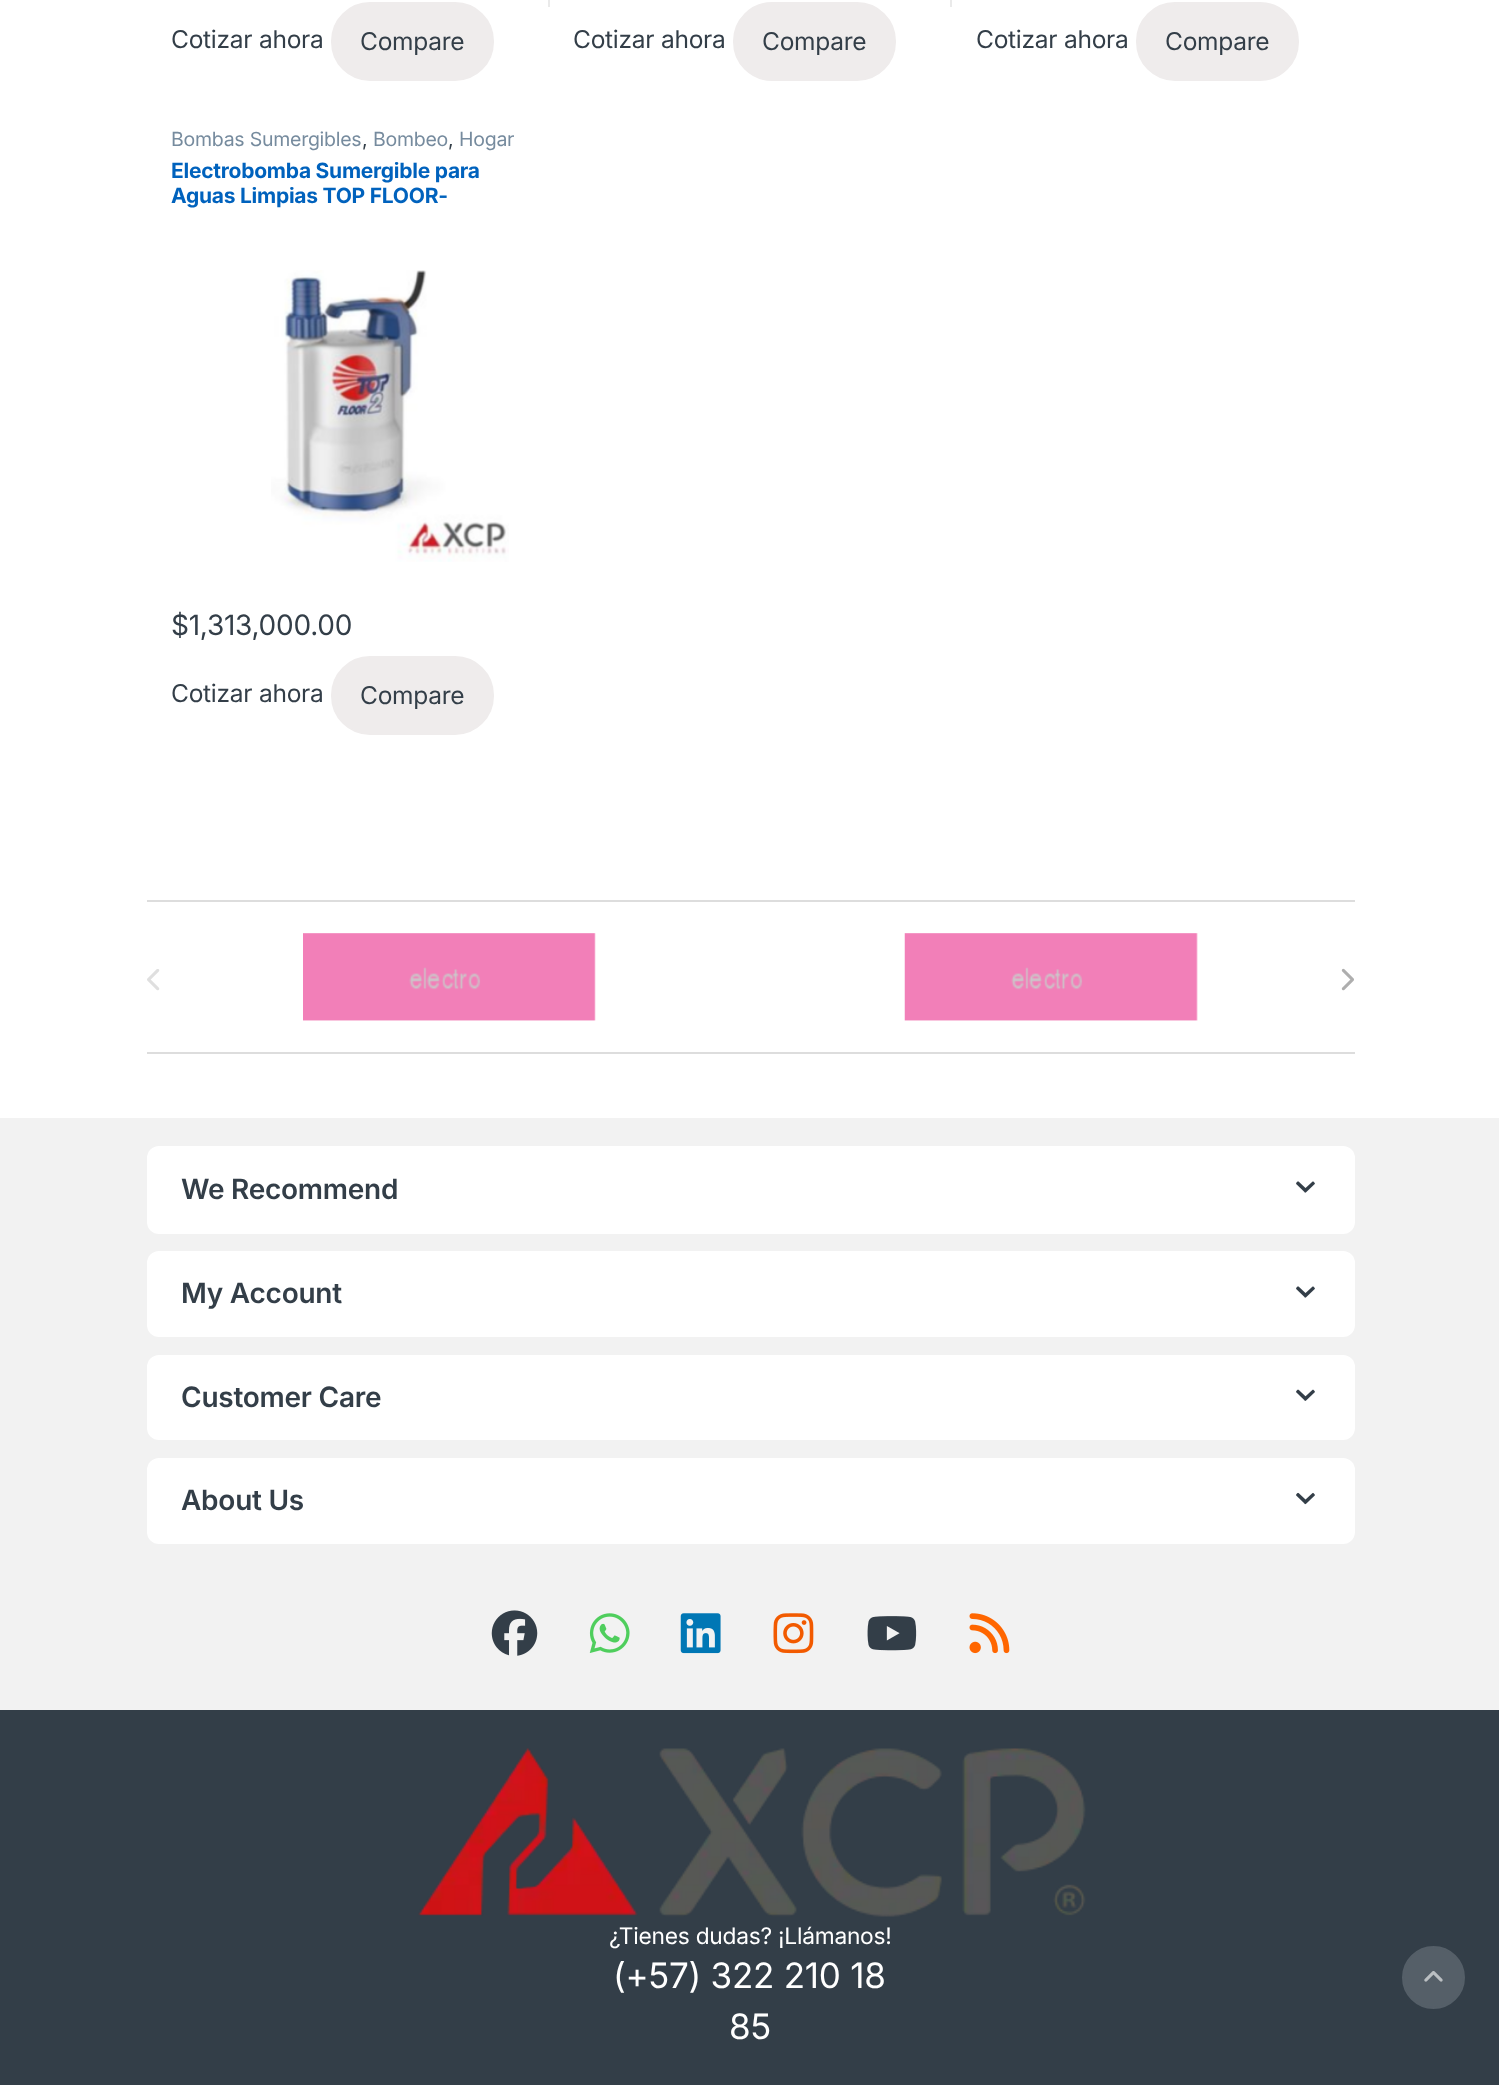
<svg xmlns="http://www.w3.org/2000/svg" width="1499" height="2085">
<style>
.a{font:24.5px Inter;letter-spacing:-0.25px;fill:#333e48}
.b{font:19.5px Inter;letter-spacing:-0.25px;fill:#768b9e}
.c{font:19.5px Inter;letter-spacing:-0.25px;fill:#333e48}
.d{font:bold 21px Inter;letter-spacing:-0.25px;fill:#0062bd}
.e{font:28px Inter;letter-spacing:-0.25px;fill:#333e48}
.f{font:600 28px Inter;letter-spacing:-0.25px;fill:#333e48}
.g{font:22.75px Inter;letter-spacing:-0.25px;fill:#fff}
.h{font:35px Inter;letter-spacing:-0.25px;fill:#fff}
</style>
<rect width="100%" height="100%" fill="#fff"/>
<path fill="#eaeaea" d="M548 0h2v7H548z"/>
<rect fill="#efecec" stroke="#efecec" stroke-width="2" x="332" y="3" width="161" height="77" rx="38"/>
<path fill="#eaeaea" d="M950 0h2v7H950z"/>
<rect fill="#efecec" stroke="#efecec" stroke-width="2" x="734" y="3" width="161" height="77" rx="38"/>
<rect fill="#efecec" stroke="#efecec" stroke-width="2" x="1137" y="3" width="161" height="77" rx="38"/>
<image href="1.png" x="271" y="270" width="238" height="292"/>
<rect fill="#efecec" stroke="#efecec" stroke-width="2" x="332" y="657" width="161" height="77" rx="38"/>
<path fill="#ddd" d="M147 900h1208v2H147z"/>
<path fill="#ddd" d="M147 1052h1208v2H147z"/>
<image href="2.png" x="303" y="933" width="293" height="88"/>
<image href="3.png" x="904" y="933" width="294" height="88"/>
<image href="4.png" x="147" y="969" width="13" height="22"/>
<image href="5.png" x="1341" y="968" width="13" height="23"/>
<path fill="#f2f2f2" d="M0 1118h1499v592H0z"/>
<rect fill="#fff" x="147" y="1146" width="1208" height="88" rx="12"/>
<image href="6.png" x="1296" y="1181" width="19" height="12"/>
<rect fill="#fff" x="147" y="1251" width="1208" height="86" rx="12"/>
<image href="6.png" x="1296" y="1286" width="19" height="12"/>
<rect fill="#fff" x="147" y="1355" width="1208" height="85" rx="12"/>
<image href="7.png" x="1296" y="1389" width="19" height="12"/>
<rect fill="#fff" x="147" y="1458" width="1208" height="86" rx="12"/>
<image href="8.png" x="1296" y="1492" width="19" height="13"/>
<image href="9.png" x="491" y="1610" width="47" height="46"/>
<image href="10.png" x="589" y="1613" width="41" height="40"/>
<image href="11.png" x="680" y="1613" width="41" height="41"/>
<image href="12.png" x="773" y="1613" width="41" height="41"/>
<image href="13.png" x="867" y="1616" width="50" height="35"/>
<image href="14.png" x="969" y="1613" width="41" height="41"/>
<path fill="#333e48" d="M0 1710h1499v375H0z"/>
<image href="15.png" x="418" y="1748" width="668" height="169"/>
<circle fill="#555f68" stroke="#555f68" stroke-width="2" cx="1433.5" cy="1977.5" r="30.5"/>
<image href="16.png" x="1424" y="1971" width="19" height="11"/>
<text class="a" x="171" y="48">Cotizar ahora</text>
<text class="a" x="360" y="50">Compare</text>
<text class="a" x="573" y="48">Cotizar ahora</text>
<text class="a" x="762" y="50">Compare</text>
<text class="a" x="976" y="48">Cotizar ahora</text>
<text class="a" x="1165" y="50">Compare</text>
<text class="b" x="171" y="146">Bombas Sumergibles</text>
<text class="c" x="362" y="146">,</text>
<text class="b" x="373" y="146">Bombeo</text>
<text class="c" x="448" y="146">,</text>
<text class="b" x="459" y="146">Hogar</text>
<text class="d" x="171" y="178">Electrobomba Sumergible para</text>
<text class="d" x="171" y="203">Aguas Limpias TOP FLOOR-</text>
<text class="e" x="171" y="635">$1,313,000.00</text>
<text class="a" x="171" y="702">Cotizar ahora</text>
<text class="a" x="360" y="704">Compare</text>
<text class="f" x="181" y="1199">We Recommend</text>
<text class="f" x="181" y="1303">My Account</text>
<text class="f" x="181" y="1407">Customer Care</text>
<text class="f" x="181" y="1510">About Us</text>
<text class="g" x="609" y="1944">¿Tienes dudas? ¡Llámanos!</text>
<text class="h" x="613" y="1988">(+57) 322 210 18</text>
<text class="h" x="729" y="2039">85</text>
</svg>
